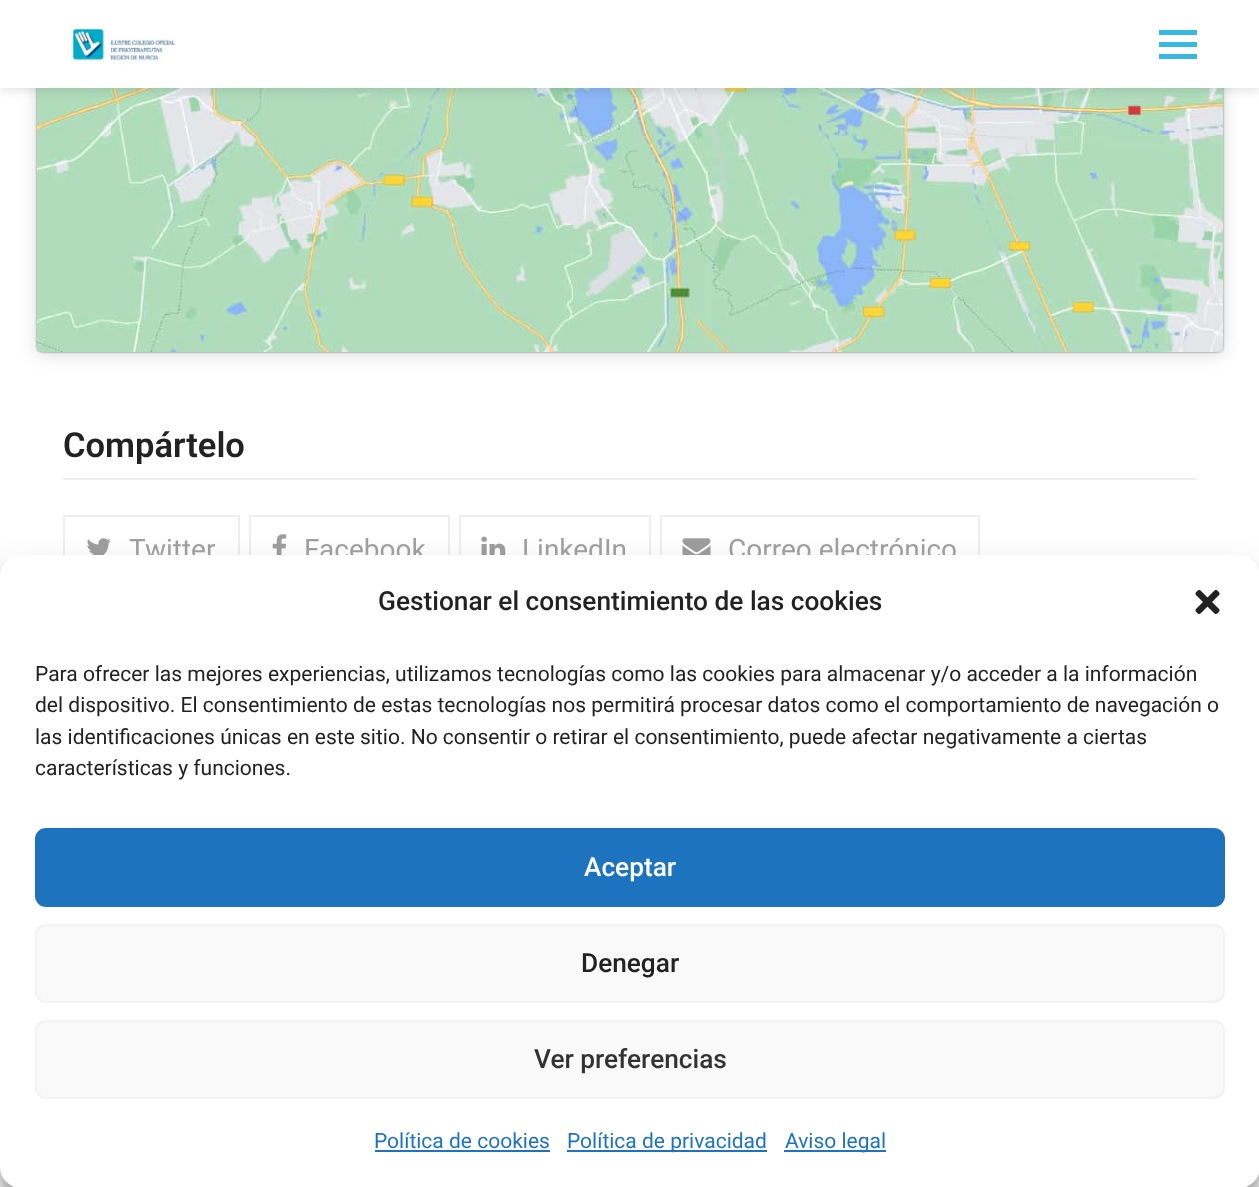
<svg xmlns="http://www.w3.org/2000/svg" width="1259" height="1187">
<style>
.a{font:600 34.5px Roboto;fill:#222}
.b{font:28px Roboto;fill:#9e9e9e}
.c{font:500 26.25px Roboto;fill:#222}
.d{font:21px Roboto;fill:#222}
.e{font:500 26.25px Roboto;fill:#fff}
.f{font:500 26.25px Roboto;fill:#333}
.g{font:21px Roboto;fill:#1e73be}
</style>
<rect width="100%" height="100%" fill="#fff"/>
<rect fill="#00000026" filter="blur(9px)" x="37" y="-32" width="1186" height="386" rx="5"/>
<rect fill="#00000080" filter="blur(1px)" x="37" y="-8" width="1186" height="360" rx="5"/>
<image href="2.png" x="36" y="88" width="1188" height="264"/>
<path fill="#0000001a" filter="blur(4.5px)" d="M0 4h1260v87H0z"/>
<path fill="#fff" d="M0 0h1259v88H0z"/>
<image href="1.png" x="71" y="25" width="106" height="40"/>
<path fill="#36b8e0" d="M1159 42h38v5H1159z"/>
<path fill="#36b8e0" d="M1159 30h38v5H1159z"/>
<path fill="#36b8e0" d="M1159 54h38v5H1159z"/>
<path fill="#eee" d="M63 478h1134v2H63z"/>
<path fill="none" stroke="#eee" stroke-width="2" d="M64 516h175v68H64z"/>
<image href="3.png" x="87" y="538" width="24" height="17"/>
<path fill="none" stroke="#eee" stroke-width="2" d="M250 516h199v68H250z"/>
<image href="4.png" x="272" y="534" width="15" height="21"/>
<path fill="none" stroke="#eee" stroke-width="2" d="M460 516h190v68H460z"/>
<image href="5.png" x="481" y="536" width="25" height="19"/>
<path fill="none" stroke="#eee" stroke-width="2" d="M661 516h318v68H661z"/>
<image href="6.png" x="682" y="538" width="29" height="17"/>
<rect fill="#0000003b" filter="blur(5px)" y="565" width="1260" height="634" rx="21"/>
<rect fill="#00000030" filter="blur(17.5px)" y="572" width="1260" height="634" rx="21"/>
<text class="a" x="63" y="457">Compártelo</text>
<text class="b" x="129" y="559">Twitter</text>
<text class="b" x="304" y="559">Facebook</text>
<text class="b" x="522" y="559">LinkedIn</text>
<text class="b" x="728" y="559">Correo electrónico</text>
<rect fill="#fff" y="555" width="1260" height="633" rx="21"/>
<text class="c" x="378" y="610">Gestionar el consentimiento de las cookies</text>
<image href="7.png" x="1195" y="590" width="25" height="24"/>
<text class="d" x="35" y="681">Para ofrecer las mejores experiencias, utilizamos tecnologías como las cookies para almacenar y/o acceder a la información</text>
<text class="d" x="35" y="712">del dispositivo. El consentimiento de estas tecnologías nos permitirá procesar datos como el comportamiento de navegación o</text>
<text class="d" x="35" y="744">las identificaciones únicas en este sitio. No consentir o retirar el consentimiento, puede afectar negativamente a ciertas</text>
<text class="d" x="35" y="775">características y funciones.</text>
<rect fill="#1e73be" stroke="#1e73be" stroke-width="2" x="36" y="829" width="1188" height="77" rx="10"/>
<text class="e" x="584" y="876">Aceptar</text>
<rect fill="#f9f9f9" stroke="#f2f2f2" stroke-width="2" x="36" y="925" width="1188" height="77" rx="10"/>
<text class="c" x="581" y="972">Denegar</text>
<rect fill="#f9f9f9" stroke="#f2f2f2" stroke-width="2" x="36" y="1021" width="1188" height="77" rx="10"/>
<text class="f" x="534" y="1068">Ver preferencias</text>
<text class="g" x="374" y="1148">Política de cookies</text>
<path fill="#1e73be" d="M375 1150h175v2H375z"/>
<path fill="#1e73be" d="M567 1150h200v2H567z"/>
<text class="g" x="567" y="1148">Política de privacidad</text>
<path fill="#1e73be" d="M784 1150h102v2H784z"/>
<text class="g" x="785" y="1148">Aviso legal</text>
</svg>
